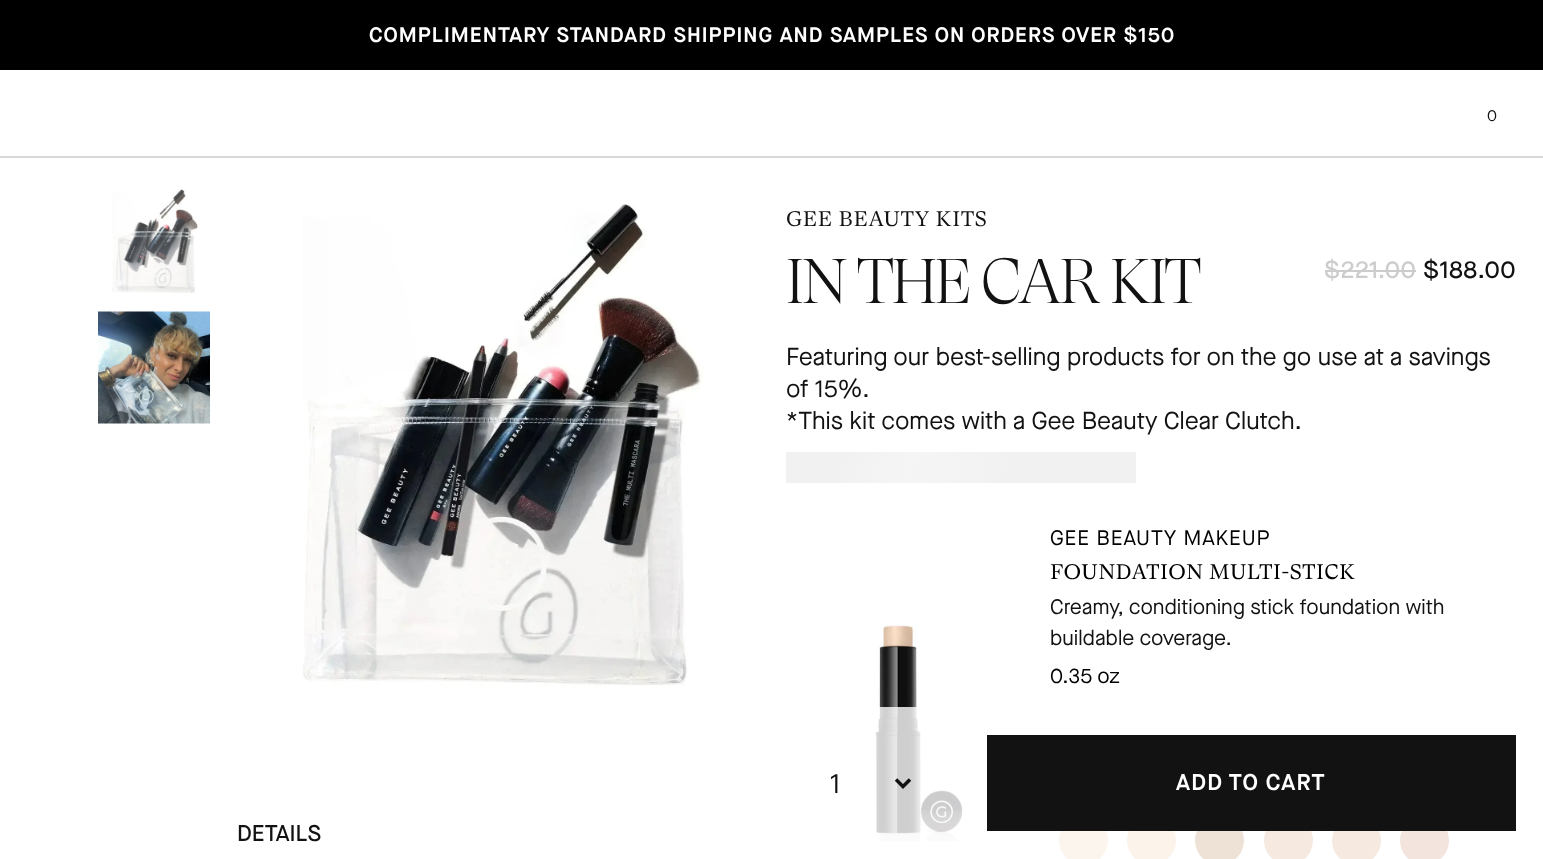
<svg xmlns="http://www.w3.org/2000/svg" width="1543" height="859">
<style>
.a{font:600 21px Maison Neue;letter-spacing:1.05px;fill:#fff}
.b{font:16px Maison Neue;fill:#121212}
.c{font:21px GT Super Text;letter-spacing:0.75px;fill:#121212}
.d{font:300 63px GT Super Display;letter-spacing:-2.5px;fill:#121212}
.e{font:500 24.5px Maison Neue;letter-spacing:0.5px;fill:#ccc}
.f{font:500 24.5px Maison Neue;letter-spacing:0.5px;fill:#121212}
.g{font:24.5px Maison Neue;fill:#121212}
.h{font:21px Maison Neue;letter-spacing:0.9px;fill:#000}
.i{font:21px GT Super Text;letter-spacing:0.6px;fill:#000}
.j{font:21px Maison Neue;fill:#121212}
.k{font:21px Maison Neue;fill:#000}
.l{font:28px Maison Neue;fill:#121212}
.m{font:600 22.75px Maison Neue;letter-spacing:1.25px;fill:#fff}
.n{font:500 22.75px Maison Neue;fill:#121212}
</style>
<defs>
<linearGradient id="g1" gradientUnits="userSpaceOnUse" x1="822" y1="353" x2="1450" y2="582"><stop offset="0.08" stop-color="#f1f1f1"/><stop offset="0.18" stop-color="#f5f5f5"/><stop offset="0.33" stop-color="#f1f1f1"/></linearGradient>
</defs>
<rect width="100%" height="100%" fill="#fff"/>
<path fill="#000" d="M0 0h1543v70H0z"/>
<path fill="#d8d8d8" d="M0 156h1543v2H0z"/>
<image href="1.png" x="112" y="189" width="86" height="104"/>
<image href="2.png" x="98" y="311" width="112" height="113"/>
<image href="3.png" x="302" y="204" width="401" height="482"/>
<path fill="#ccc" d="M1325 270h91v2H1325z"/>
<path fill="url(#g1)" d="M786 452h350v31H786z"/>
<circle fill="#f1cea6" cx="1083.5" cy="840.5" r="24.5"/>
<circle fill="#f0c59b" cx="1151.5" cy="840.5" r="24.5"/>
<circle fill="#a86e34" cx="1219.5" cy="840.5" r="24.5"/>
<circle fill="#cd8f65" cx="1288.5" cy="840.5" r="24.5"/>
<circle fill="#cd8f65" cx="1356.5" cy="840.5" r="24.5"/>
<circle fill="#c07a58" cx="1424.5" cy="840.5" r="24.5"/>
<image href="4.png" x="875" y="625" width="89" height="217"/>
<path fill="#ffffffcc" d="M875 707h574v152H875z"/>
<path fill="none" stroke="#121212" stroke-width="3.5" d="M896 779.5l7 7l7-7"/>
<path fill="#121212" d="M987 735h529v96H987z"/>
<text class="a" x="369" y="42">COMPLIMENTARY STANDARD SHIPPING AND SAMPLES ON ORDERS OVER $150</text>
<text class="b" x="1487" y="121">0</text>
<text class="c" x="786" y="226">GEE BEAUTY KITS</text>
<text class="d" x="786" y="303">IN THE CAR KIT</text>
<text class="e" x="1324" y="278">$221.00</text>
<text class="f" x="1423" y="278">$188.00</text>
<text class="g" x="786" y="365">Featuring our best-selling products for on the go use at a savings</text>
<text class="g" x="786" y="397">of 15%.</text>
<text class="g" x="786" y="429">*This kit comes with a Gee Beauty Clear Clutch.</text>
<text class="h" x="1050" y="545">GEE BEAUTY MAKEUP</text>
<text class="i" x="1050" y="579">FOUNDATION MULTI-STICK</text>
<text class="j" x="1050" y="614">Creamy, conditioning stick foundation with</text>
<text class="j" x="1050" y="645">buildable coverage.</text>
<text class="k" x="1050" y="683">0.35 oz</text>
<text class="l" x="830" y="793">1</text>
<text class="m" x="1176" y="790">ADD TO CART</text>
<text class="n" x="237" y="841">DETAILS</text>
</svg>
